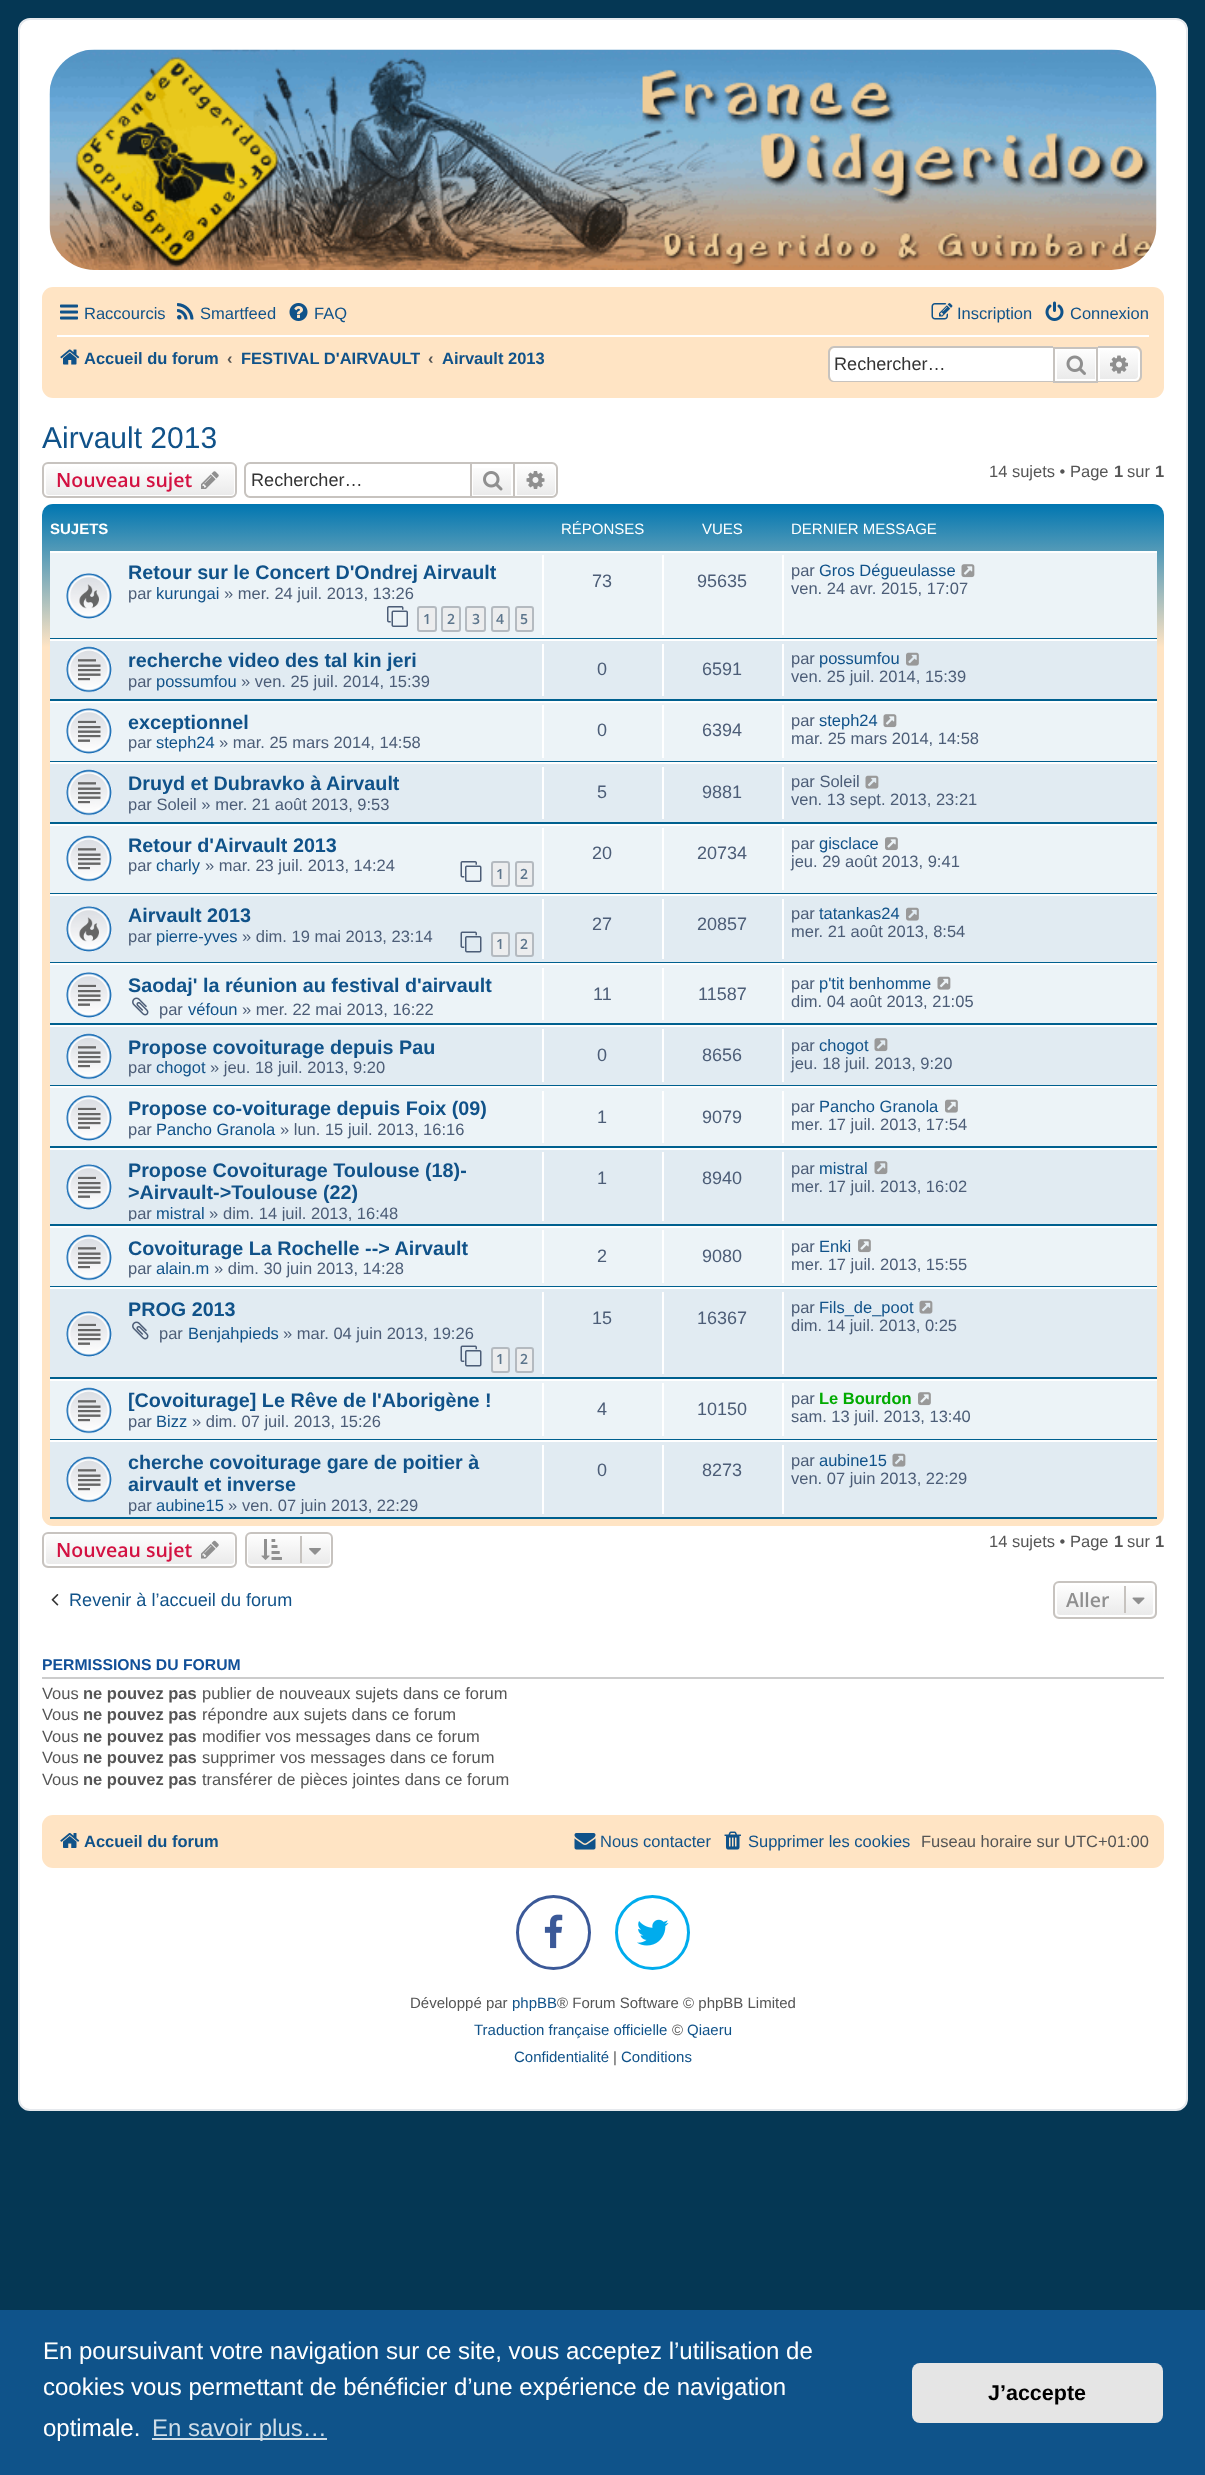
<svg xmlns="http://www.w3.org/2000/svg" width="1205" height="2475">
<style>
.a{font:16.5px Liberation Sans;fill:#105289}
.b{font:bold 16.5px Liberation Sans;fill:#105289}
.c{font:bold 16.5px Liberation Sans;fill:#555}
.d{font:18.1px Liberation Sans;fill:#333}
.e{font:30px Liberation Sans;fill:#105289}
.f{font:600 19.5px Open Sans;fill:#d31141}
.g{font:16.5px Liberation Sans;fill:#555}
.h{font:bold 15px Liberation Sans;fill:#fff}
.i{font:15px Liberation Sans;fill:#fff}
.j{font:bold 19.75px Liberation Sans;fill:#105289}
.k{font:16.5px Liberation Sans;fill:#4c5d77}
.l{font:600 14px Open Sans;fill:#5c758c}
.m{font:18px Liberation Sans;fill:#4c5d77}
.n{font:bold 16.5px Liberation Sans;fill:#0a0}
.o{font:18.1px Liberation Sans;fill:#105289}
.p{font:600 19.5px Open Sans;fill:#8f8f8f}
.q{font:bold 15.75px Liberation Sans;fill:#115098}
.r{font:15px Liberation Sans;fill:#555}
.s{font:15px Liberation Sans;fill:#105289}
.t{font:24px Liberation Sans;fill:#fff}
.u{font:24px Liberation Sans;fill:#cfdde8}
.v{font:bold 21.5px Liberation Sans;fill:#000}
</style>
<defs>
<linearGradient id="g1" gradientUnits="userSpaceOnUse" x1="1076" y1="348" x2="1076" y2="381"><stop offset="0" stop-color="#fff"/><stop offset="1" stop-color="#e9e9e9"/></linearGradient>
<linearGradient id="g2" gradientUnits="userSpaceOnUse" x1="1119" y1="348" x2="1119" y2="381"><stop offset="0" stop-color="#fff"/><stop offset="1" stop-color="#e9e9e9"/></linearGradient>
<clipPath id="clip1"><rect x="42" y="462" width="195" height="36" rx="6"/></clipPath>
<linearGradient id="g3" gradientUnits="userSpaceOnUse" x1="140" y1="464" x2="140" y2="497"><stop offset="0" stop-color="#fff"/><stop offset="1" stop-color="#e9e9e9"/></linearGradient>
<linearGradient id="g4" gradientUnits="userSpaceOnUse" x1="492" y1="464" x2="492" y2="497"><stop offset="0" stop-color="#fff"/><stop offset="1" stop-color="#e9e9e9"/></linearGradient>
<linearGradient id="g5" gradientUnits="userSpaceOnUse" x1="536" y1="464" x2="536" y2="497"><stop offset="0" stop-color="#fff"/><stop offset="1" stop-color="#e9e9e9"/></linearGradient>
<linearGradient id="g6" gradientUnits="userSpaceOnUse" x1="603" y1="504" x2="603" y2="1526"><stop offset="0" stop-color="#ffe4c4"/><stop offset="0" stop-color="#0076b1"/><stop offset="0.14" stop-color="#ffe4c4"/><stop offset="1" stop-color="#ffe4c4"/></linearGradient>
<clipPath id="clip2"><rect x="42" y="1532" width="195" height="36" rx="6"/></clipPath>
<linearGradient id="g7" gradientUnits="userSpaceOnUse" x1="140" y1="1533" x2="140" y2="1566"><stop offset="0" stop-color="#fff"/><stop offset="1" stop-color="#e9e9e9"/></linearGradient>
<clipPath id="clip3"><rect x="245" y="1532" width="88" height="36" rx="6"/></clipPath>
<linearGradient id="g8" gradientUnits="userSpaceOnUse" x1="289" y1="1533" x2="289" y2="1566"><stop offset="0" stop-color="#fff"/><stop offset="1" stop-color="#e9e9e9"/></linearGradient>
<clipPath id="clip4"><rect x="1053" y="1581" width="104" height="38" rx="6"/></clipPath>
<linearGradient id="g9" gradientUnits="userSpaceOnUse" x1="1105" y1="1583" x2="1105" y2="1617"><stop offset="0" stop-color="#fff"/><stop offset="1" stop-color="#e9e9e9"/></linearGradient>
<clipPath id="clip5"><path d="M242 341h178v36H242z"/></clipPath>
<clipPath id="clip6"><path d="M50 1152h1107v69H50z"/></clipPath>
<clipPath id="clip7"><path d="M50 1445h1107v69H50z"/></clipPath>
</defs>
<rect width="100%" height="100%" fill="#053754"/>
<rect fill="#fff" stroke="#e6e9ed" stroke-width="2" x="19" y="19" width="1168" height="2091" rx="11"/>
<image href="1.png" x="49" y="49" width="1108" height="221"/>
<rect fill="#ffe4c4" x="42" y="287" width="1122" height="111" rx="11"/>
<image href="2.png" x="60" y="304" width="18" height="16"/>
<image href="3.png" x="177" y="303" width="17" height="17"/>
<image href="4.png" x="289" y="303" width="19" height="18"/>
<image href="5.png" x="931" y="303" width="22" height="17"/>
<image href="6.png" x="1045" y="301" width="19" height="20"/>
<path fill="#fff" d="M57 335h1092v2H57z"/>
<image href="7.png" x="60" y="349" width="20" height="16"/>
<path fill="#fff" d="M835 348h218v33h-218c-3 0-5-2-5-5v-23c0-3 2-5 5-5z"/>
<path fill="#c7c3bf" fill-rule="evenodd" d="M834 346h219v36h-219c-3 0-6-2-6-6v-24c0-3 3-6 6-6zm0 2h219v33h-219c-2 0-4-2-4-5v-24c0-2 2-4 4-4z"/>
<path fill="url(#g1)" d="M1057 350h38v29H1057z"/>
<path fill="none" stroke="#fff" stroke-width="2" d="M1056 349h40v31H1056z"/>
<path fill="none" stroke="#c7c3bf" stroke-width="2" d="M1054 348h43v34H1054z"/>
<image href="8.png" x="1066" y="355" width="20" height="20"/>
<path fill="url(#g2)" stroke="#fff" stroke-width="2" d="M1099 349h36c2 0 4 2 4 4v23c0 2-2 4-4 4h-36z"/>
<path fill="#c7c3bf" fill-rule="evenodd" d="M1098 346h38c3 0 6 3 6 6v24c0 4-3 6-6 6h-38zm0 2h38c2 0 4 2 4 4v24c0 3-2 5-4 5h-38z"/>
<image href="9.png" x="1110" y="355" width="18" height="19"/>
<g clip-path="url(#clip1)">
<path fill="url(#g3)" d="M42 464h195v33H42z"/>
</g>
<rect fill="none" stroke="#fff" stroke-width="2" x="45" y="465" width="190" height="31" rx="4"/>
<rect fill="none" stroke="#c7c3bf" stroke-width="2" x="43" y="463" width="193" height="34" rx="5"/>
<image href="10.png" x="201" y="471" width="18" height="18"/>
<path fill="#c7c3bf" fill-rule="evenodd" d="M250 462h220v36h-220c-3 0-6-3-6-6v-24c0-3 3-6 6-6zm0 2h220v32h-220c-2 0-4-2-4-4v-24c0-2 2-4 4-4z"/>
<path fill="url(#g4)" d="M473 468h38v27H473z"/>
<path fill="none" stroke="#c7c3bf" stroke-width="2" d="M471 463h43v34H471z"/>
<image href="11.png" x="483" y="471" width="20" height="20"/>
<path fill="url(#g5)" stroke="#fff" stroke-width="2" d="M516 465h36c2 0 4 2 4 4v23c0 2-2 4-4 4h-36z"/>
<path fill="#c7c3bf" fill-rule="evenodd" d="M514 462h38c3 0 6 3 6 6v24c0 3-3 6-6 6h-38zm0 2h38c2 0 4 2 4 4v24c0 2-2 4-4 4h-38z"/>
<image href="12.png" x="526" y="471" width="19" height="18"/>
<rect fill="url(#g6)" x="42" y="504" width="1122" height="1022" rx="11"/>
<path fill="#ecf3f7" d="M50 553h1107v85H50z"/>
<path fill="#fff" d="M50 551h1107v2H50z"/>
<path fill="#00608f" d="M50 638h1107v1H50z"/>
<image href="13.png" x="66" y="573" width="46" height="46"/>
<image href="14.png" x="387" y="606" width="21" height="21"/>
<rect fill="#ecedee" stroke="#b4bac0" stroke-width="2" x="418" y="607" width="18" height="24" rx="2"/>
<rect fill="#ecedee" stroke="#b4bac0" stroke-width="2" x="442" y="607" width="18" height="24" rx="2"/>
<rect fill="#ecedee" stroke="#b4bac0" stroke-width="2" x="466" y="607" width="19" height="24" rx="2"/>
<rect fill="#ecedee" stroke="#b4bac0" stroke-width="2" x="492" y="607" width="17" height="24" rx="2"/>
<rect fill="#ecedee" stroke="#b4bac0" stroke-width="2" x="516" y="607" width="17" height="24" rx="2"/>
<path fill="#fff" d="M542 555h2v80H542z"/>
<path fill="#fff" d="M662 555h2v80H662z"/>
<path fill="#fff" d="M782 555h2v80H782z"/>
<image href="15.png" x="961" y="564" width="14" height="14"/>
<path fill="#e1ebf2" d="M50 641h1107v58H50z"/>
<path fill="#fff" d="M50 639h1107v2H50z"/>
<path fill="#00608f" d="M50 699h1107v2H50z"/>
<image href="16.png" x="66" y="646" width="46" height="47"/>
<path fill="#fff" d="M542 644h2v52H542z"/>
<path fill="#fff" d="M662 644h2v52H662z"/>
<path fill="#fff" d="M782 644h2v52H782z"/>
<image href="17.png" x="906" y="652" width="13" height="14"/>
<path fill="#ecf3f7" d="M50 703h1107v58H50z"/>
<path fill="#fff" d="M50 701h1107v2H50z"/>
<path fill="#00608f" d="M50 761h1107v1H50z"/>
<image href="18.png" x="66" y="708" width="46" height="46"/>
<path fill="#fff" d="M542 705h2v53H542z"/>
<path fill="#fff" d="M662 705h2v53H662z"/>
<path fill="#fff" d="M782 705h2v53H782z"/>
<image href="15.png" x="883" y="714" width="14" height="14"/>
<path fill="#e1ebf2" d="M50 764h1107v58H50z"/>
<path fill="#fff" d="M50 762h1107v2H50z"/>
<path fill="#00608f" d="M50 822h1107v2H50z"/>
<image href="16.png" x="66" y="769" width="46" height="47"/>
<path fill="#fff" d="M542 767h2v52H542z"/>
<path fill="#fff" d="M662 767h2v52H662z"/>
<path fill="#fff" d="M782 767h2v52H782z"/>
<image href="19.png" x="865" y="775" width="14" height="14"/>
<path fill="#ecf3f7" d="M50 826h1107v67H50z"/>
<path fill="#fff" d="M50 824h1107v2H50z"/>
<path fill="#00608f" d="M50 893h1107v1H50z"/>
<image href="20.png" x="66" y="835" width="46" height="47"/>
<image href="21.png" x="460" y="861" width="22" height="21"/>
<rect fill="#ecedee" stroke="#b4bac0" stroke-width="2" x="492" y="862" width="17" height="24" rx="2"/>
<rect fill="#ecedee" stroke="#b4bac0" stroke-width="2" x="516" y="862" width="17" height="24" rx="2"/>
<path fill="#fff" d="M542 828h2v62H542z"/>
<path fill="#fff" d="M662 828h2v62H662z"/>
<path fill="#fff" d="M782 828h2v62H782z"/>
<image href="22.png" x="885" y="837" width="13" height="14"/>
<path fill="#e1ebf2" d="M50 896h1107v66H50z"/>
<path fill="#fff" d="M50 894h1107v2H50z"/>
<path fill="#00608f" d="M50 962h1107v1H50z"/>
<image href="23.png" x="66" y="906" width="46" height="46"/>
<image href="24.png" x="460" y="931" width="22" height="22"/>
<rect fill="#ecedee" stroke="#b4bac0" stroke-width="2" x="492" y="933" width="17" height="23" rx="2"/>
<rect fill="#ecedee" stroke="#b4bac0" stroke-width="2" x="516" y="933" width="17" height="23" rx="2"/>
<path fill="#fff" d="M542 899h2v60H542z"/>
<path fill="#fff" d="M662 899h2v60H662z"/>
<path fill="#fff" d="M782 899h2v60H782z"/>
<image href="17.png" x="906" y="907" width="13" height="14"/>
<path fill="#ecf3f7" d="M50 965h1107v58H50z"/>
<path fill="#fff" d="M50 963h1107v2H50z"/>
<path fill="#00608f" d="M50 1023h1107v2H50z"/>
<image href="18.png" x="66" y="972" width="46" height="46"/>
<image href="25.png" x="132" y="997" width="17" height="19"/>
<path fill="#fff" d="M542 968h2v52H542z"/>
<path fill="#fff" d="M662 968h2v52H662z"/>
<path fill="#fff" d="M782 968h2v52H782z"/>
<image href="26.png" x="937" y="976" width="14" height="14"/>
<path fill="#e1ebf2" d="M50 1027h1107v58H50z"/>
<path fill="#fff" d="M50 1025h1107v2H50z"/>
<path fill="#00608f" d="M50 1085h1107v1H50z"/>
<image href="16.png" x="66" y="1033" width="46" height="47"/>
<path fill="#fff" d="M542 1029h2v53H542z"/>
<path fill="#fff" d="M662 1029h2v53H662z"/>
<path fill="#fff" d="M782 1029h2v53H782z"/>
<image href="27.png" x="874" y="1038" width="14" height="14"/>
<path fill="#ecf3f7" d="M50 1088h1107v58H50z"/>
<path fill="#fff" d="M50 1086h1107v2H50z"/>
<path fill="#00608f" d="M50 1146h1107v2H50z"/>
<image href="18.png" x="66" y="1095" width="46" height="46"/>
<path fill="#fff" d="M542 1091h2v52H542z"/>
<path fill="#fff" d="M662 1091h2v52H662z"/>
<path fill="#fff" d="M782 1091h2v52H782z"/>
<image href="28.png" x="945" y="1099" width="13" height="14"/>
<path fill="#e1ebf2" d="M50 1150h1107v74H50z"/>
<path fill="#fff" d="M50 1148h1107v2H50z"/>
<path fill="#00608f" d="M50 1224h1107v2H50z"/>
<image href="29.png" x="66" y="1164" width="46" height="46"/>
<path fill="#fff" d="M542 1152h2v69H542z"/>
<path fill="#fff" d="M662 1152h2v69H662z"/>
<path fill="#fff" d="M782 1152h2v69H782z"/>
<image href="27.png" x="874" y="1161" width="14" height="14"/>
<path fill="#ecf3f7" d="M50 1228h1107v58H50z"/>
<path fill="#fff" d="M50 1226h1107v2H50z"/>
<path fill="#00608f" d="M50 1286h1107v1H50z"/>
<image href="20.png" x="66" y="1234" width="46" height="47"/>
<path fill="#fff" d="M542 1230h2v53H542z"/>
<path fill="#fff" d="M662 1230h2v53H662z"/>
<path fill="#fff" d="M782 1230h2v53H782z"/>
<image href="22.png" x="858" y="1239" width="13" height="14"/>
<path fill="#e1ebf2" d="M50 1289h1107v88H50z"/>
<path fill="#fff" d="M50 1287h1107v2H50z"/>
<path fill="#00608f" d="M50 1377h1107v2H50z"/>
<image href="29.png" x="66" y="1311" width="46" height="46"/>
<image href="30.png" x="132" y="1321" width="17" height="19"/>
<image href="24.png" x="460" y="1345" width="22" height="22"/>
<rect fill="#ecedee" stroke="#b4bac0" stroke-width="2" x="492" y="1348" width="17" height="24" rx="2"/>
<rect fill="#ecedee" stroke="#b4bac0" stroke-width="2" x="516" y="1348" width="17" height="24" rx="2"/>
<path fill="#fff" d="M542 1292h2v82H542z"/>
<path fill="#fff" d="M662 1292h2v82H662z"/>
<path fill="#fff" d="M782 1292h2v82H782z"/>
<image href="19.png" x="919" y="1300" width="14" height="14"/>
<path fill="#ecf3f7" d="M50 1381h1107v58H50z"/>
<path fill="#fff" d="M50 1379h1107v2H50z"/>
<path fill="#00608f" d="M50 1439h1107v1H50z"/>
<image href="20.png" x="66" y="1387" width="46" height="47"/>
<path fill="#fff" d="M542 1383h2v53H542z"/>
<path fill="#fff" d="M662 1383h2v53H662z"/>
<path fill="#fff" d="M782 1383h2v53H782z"/>
<image href="22.png" x="918" y="1392" width="13" height="14"/>
<path fill="#e1ebf2" d="M50 1442h1107v75H50z"/>
<path fill="#fff" d="M50 1440h1107v2H50z"/>
<path fill="#00608f" d="M50 1517h1107v2H50z"/>
<image href="16.png" x="66" y="1456" width="46" height="47"/>
<path fill="#fff" d="M542 1445h2v69H542z"/>
<path fill="#fff" d="M662 1445h2v69H662z"/>
<path fill="#fff" d="M782 1445h2v69H782z"/>
<image href="19.png" x="892" y="1453" width="14" height="14"/>
<g clip-path="url(#clip2)">
<path fill="url(#g7)" d="M42 1533h195v33H42z"/>
</g>
<rect fill="none" stroke="#fff" stroke-width="2" x="45" y="1534" width="190" height="31" rx="4"/>
<rect fill="none" stroke="#c7c3bf" stroke-width="2" x="43" y="1533" width="193" height="34" rx="5"/>
<image href="31.png" x="201" y="1540" width="18" height="19"/>
<g clip-path="url(#clip3)">
<path fill="url(#g8)" d="M245 1533h88v33H245z"/>
</g>
<rect fill="none" stroke="#fff" stroke-width="2" x="247" y="1534" width="84" height="31" rx="4"/>
<rect fill="none" stroke="#c7c3bf" stroke-width="2" x="246" y="1533" width="86" height="34" rx="5"/>
<image href="32.png" x="261" y="1539" width="21" height="21"/>
<path fill="#c7c3bf" d="M300 1536h2v27H300z"/>
<image href="33.png" x="309" y="1548" width="12" height="7"/>
<image href="34.png" x="51" y="1594" width="8" height="12"/>
<g clip-path="url(#clip4)">
<path fill="url(#g9)" d="M1053 1583h104v34H1053z"/>
</g>
<rect fill="none" stroke="#fff" stroke-width="2" x="1056" y="1584" width="98" height="32" rx="4"/>
<rect fill="none" stroke="#c7c3bf" stroke-width="2" x="1054" y="1582" width="102" height="36" rx="5"/>
<path fill="#c7c3bf" d="M1124 1586h2v27H1124z"/>
<image href="35.png" x="1132" y="1597" width="13" height="8"/>
<path fill="#ccc" d="M42 1677h1122v2H42z"/>
<rect fill="#ffe4c4" x="42" y="1815" width="1122" height="53" rx="11"/>
<image href="36.png" x="60" y="1833" width="20" height="15"/>
<image href="37.png" x="574" y="1833" width="22" height="17"/>
<image href="38.png" x="724" y="1831" width="17" height="19"/>
<circle fill="none" stroke="#3b5998" stroke-width="3" cx="553.5" cy="1932.5" r="36"/>
<image href="39.png" x="544" y="1914" width="19" height="35"/>
<circle fill="none" stroke="#00aced" stroke-width="3" cx="652.5" cy="1932.5" r="36"/>
<image href="40.png" x="637" y="1919" width="32" height="27"/>
<path fill="#0f538a" d="M0 2310h1205v165H0z"/>
<path fill="#cfdde8" d="M152 2438h175v2H152z"/>
<rect fill="#e5e5e5" x="912" y="2363" width="251" height="60" rx="8"/>
<text class="a" x="84" y="319">Raccourcis</text>
<text class="a" x="200" y="319">Smartfeed</text>
<text class="a" x="314" y="319">FAQ</text>
<text class="a" x="957" y="319">Inscription</text>
<text class="a" x="1070" y="319">Connexion</text>
<text class="b" x="84" y="364">Accueil du forum</text>
<text class="c" x="227" y="364">‹</text>
<g clip-path="url(#clip5)">
<text class="b" x="241" y="364">FESTIVAL D'AIRVAULT</text>
</g>
<text class="c" x="428" y="364">‹</text>
<text class="b" x="442" y="364">Airvault 2013</text>
<text class="d" x="834" y="370">Rechercher…</text>
<text class="e" x="42" y="448">Airvault 2013</text>
<text class="f" x="56" y="487">Nouveau sujet</text>
<text class="d" x="251" y="486">Rechercher…</text>
<text class="g" x="989" y="477">14 sujets • Page</text>
<text class="c" x="1114" y="477">1</text>
<text class="g" x="1127" y="477">sur</text>
<text class="c" x="1155" y="477">1</text>
<text class="h" x="50" y="534">SUJETS</text>
<text class="i" x="561" y="534">RÉPONSES</text>
<text class="i" x="702" y="534">VUES</text>
<text class="i" x="791" y="534">DERNIER MESSAGE</text>
<text class="j" x="128" y="579">Retour sur le Concert D'Ondrej Airvault</text>
<text class="k" x="128" y="599">par</text>
<text class="a" x="156" y="599">kurungai</text>
<text class="k" x="224" y="599">» mer. 24 juil. 2013, 13:26</text>
<text class="l" x="423" y="624">1</text>
<text class="l" x="447" y="624">2</text>
<text class="l" x="472" y="624">3</text>
<text class="l" x="496" y="624">4</text>
<text class="l" x="520" y="624">5</text>
<text class="m" x="592" y="587">73</text>
<text class="m" x="697" y="587">95635</text>
<text class="k" x="791" y="576">par</text>
<text class="a" x="819" y="576">Gros Dégueulasse</text>
<text class="k" x="791" y="594">ven. 24 avr. 2015, 17:07</text>
<text class="j" x="128" y="667">recherche video des tal kin jeri</text>
<text class="k" x="128" y="687">par</text>
<text class="a" x="156" y="687">possumfou</text>
<text class="k" x="241" y="687">» ven. 25 juil. 2014, 15:39</text>
<text class="m" x="597" y="675">0</text>
<text class="m" x="702" y="675">6591</text>
<text class="k" x="791" y="664">par</text>
<text class="a" x="819" y="664">possumfou</text>
<text class="k" x="791" y="682">ven. 25 juil. 2014, 15:39</text>
<text class="j" x="128" y="729">exceptionnel</text>
<text class="k" x="128" y="748">par</text>
<text class="a" x="156" y="748">steph24</text>
<text class="k" x="219" y="748">» mar. 25 mars 2014, 14:58</text>
<text class="m" x="597" y="736">0</text>
<text class="m" x="702" y="736">6394</text>
<text class="k" x="791" y="726">par</text>
<text class="a" x="819" y="726">steph24</text>
<text class="k" x="791" y="744">mar. 25 mars 2014, 14:58</text>
<text class="j" x="128" y="790">Druyd et Dubravko à Airvault</text>
<text class="k" x="128" y="810">par Soleil » mer. 21 août 2013, 9:53</text>
<text class="m" x="597" y="798">5</text>
<text class="m" x="702" y="798">9881</text>
<text class="k" x="791" y="787">par Soleil</text>
<text class="k" x="791" y="805">ven. 13 sept. 2013, 23:21</text>
<text class="j" x="128" y="852">Retour d'Airvault 2013</text>
<text class="k" x="128" y="871">par</text>
<text class="a" x="156" y="871">charly</text>
<text class="k" x="205" y="871">» mar. 23 juil. 2013, 14:24</text>
<text class="l" x="496" y="879">1</text>
<text class="l" x="520" y="879">2</text>
<text class="m" x="592" y="859">20</text>
<text class="m" x="697" y="859">20734</text>
<text class="k" x="791" y="849">par</text>
<text class="a" x="819" y="849">gisclace</text>
<text class="k" x="791" y="867">jeu. 29 août 2013, 9:41</text>
<text class="j" x="128" y="922">Airvault 2013</text>
<text class="k" x="128" y="942">par</text>
<text class="a" x="156" y="942">pierre-yves</text>
<text class="k" x="242" y="942">» dim. 19 mai 2013, 23:14</text>
<text class="l" x="496" y="949">1</text>
<text class="l" x="520" y="949">2</text>
<text class="m" x="592" y="930">27</text>
<text class="m" x="697" y="930">20857</text>
<text class="k" x="791" y="919">par</text>
<text class="a" x="819" y="919">tatankas24</text>
<text class="k" x="791" y="937">mer. 21 août 2013, 8:54</text>
<text class="j" x="128" y="992">Saodaj' la réunion au festival d'airvault</text>
<text class="k" x="159" y="1015">par</text>
<text class="a" x="188" y="1015">véfoun</text>
<text class="k" x="242" y="1015">» mer. 22 mai 2013, 16:22</text>
<text class="m" x="593" y="1000">11</text>
<text class="m" x="698" y="1000">11587</text>
<text class="k" x="791" y="989">par</text>
<text class="a" x="819" y="989">p'tit benhomme</text>
<text class="k" x="791" y="1007">dim. 04 août 2013, 21:05</text>
<text class="j" x="128" y="1054">Propose covoiturage depuis Pau</text>
<text class="k" x="128" y="1073">par</text>
<text class="a" x="156" y="1073">chogot</text>
<text class="k" x="210" y="1073">» jeu. 18 juil. 2013, 9:20</text>
<text class="m" x="597" y="1061">0</text>
<text class="m" x="702" y="1061">8656</text>
<text class="k" x="791" y="1051">par</text>
<text class="a" x="819" y="1051">chogot</text>
<text class="k" x="791" y="1069">jeu. 18 juil. 2013, 9:20</text>
<text class="j" x="128" y="1115">Propose co-voiturage depuis Foix (09)</text>
<text class="k" x="128" y="1135">par</text>
<text class="a" x="156" y="1135">Pancho Granola</text>
<text class="k" x="280" y="1135">» lun. 15 juil. 2013, 16:16</text>
<text class="m" x="597" y="1123">1</text>
<text class="m" x="702" y="1123">9079</text>
<text class="k" x="791" y="1112">par</text>
<text class="a" x="819" y="1112">Pancho Granola</text>
<text class="k" x="791" y="1130">mer. 17 juil. 2013, 17:54</text>
<text class="j" x="128" y="1177">Propose Covoiturage Toulouse (18)-</text>
<text class="j" x="128" y="1199">&gt;Airvault-&gt;Toulouse (22)</text>
<g clip-path="url(#clip6)">
<text class="k" x="128" y="1219">par</text>
</g>
<text class="a" x="156" y="1219">mistral</text>
<text class="k" x="209" y="1219">»</text>
<g clip-path="url(#clip6)">
<text class="k" x="223" y="1219">dim. 14 juil.</text>
</g>
<text class="k" x="311" y="1219">2013, 16:48</text>
<text class="m" x="597" y="1184">1</text>
<text class="m" x="702" y="1184">8940</text>
<text class="k" x="791" y="1174">par</text>
<text class="a" x="819" y="1174">mistral</text>
<text class="k" x="791" y="1192">mer. 17 juil. 2013, 16:02</text>
<text class="j" x="128" y="1255">Covoiturage La Rochelle --&gt; Airvault</text>
<text class="k" x="128" y="1274">par</text>
<text class="a" x="156" y="1274">alain.m</text>
<text class="k" x="214" y="1274">» dim. 30 juin 2013, 14:28</text>
<text class="m" x="597" y="1262">2</text>
<text class="m" x="702" y="1262">9080</text>
<text class="k" x="791" y="1252">par</text>
<text class="a" x="819" y="1252">Enki</text>
<text class="k" x="791" y="1270">mer. 17 juil. 2013, 15:55</text>
<text class="j" x="128" y="1316">PROG 2013</text>
<text class="k" x="159" y="1339">par</text>
<text class="a" x="188" y="1339">Benjahpieds</text>
<text class="k" x="283" y="1339">» mar. 04 juin 2013, 19:26</text>
<text class="l" x="496" y="1364">1</text>
<text class="l" x="520" y="1364">2</text>
<text class="m" x="592" y="1324">15</text>
<text class="m" x="697" y="1324">16367</text>
<text class="k" x="791" y="1313">par</text>
<text class="a" x="819" y="1313">Fils_de_poot</text>
<text class="k" x="791" y="1331">dim. 14 juil. 2013, 0:25</text>
<text class="j" x="128" y="1407">[Covoiturage] Le Rêve de l'Aborigène !</text>
<text class="k" x="128" y="1427">par</text>
<text class="a" x="156" y="1427">Bizz</text>
<text class="k" x="192" y="1427">» dim. 07 juil. 2013, 15:26</text>
<text class="m" x="597" y="1415">4</text>
<text class="m" x="697" y="1415">10150</text>
<text class="k" x="791" y="1404">par</text>
<text class="n" x="819" y="1404">Le Bourdon</text>
<text class="k" x="791" y="1422">sam. 13 juil. 2013, 13:40</text>
<text class="j" x="128" y="1469">cherche covoiturage gare de poitier à</text>
<text class="j" x="128" y="1491">airvault et inverse</text>
<text class="k" x="128" y="1511">par</text>
<text class="a" x="156" y="1511">aubine15</text>
<text class="k" x="228" y="1511">»</text>
<g clip-path="url(#clip7)">
<text class="k" x="242" y="1511">ven. 07 juin</text>
</g>
<text class="k" x="331" y="1511">2013, 22:29</text>
<text class="m" x="597" y="1476">0</text>
<text class="m" x="702" y="1476">8273</text>
<text class="k" x="791" y="1466">par</text>
<text class="a" x="819" y="1466">aubine15</text>
<text class="k" x="791" y="1484">ven. 07 juin 2013, 22:29</text>
<text class="f" x="56" y="1557">Nouveau sujet</text>
<text class="g" x="989" y="1547">14 sujets • Page</text>
<text class="c" x="1114" y="1547">1</text>
<text class="g" x="1127" y="1547">sur</text>
<text class="c" x="1155" y="1547">1</text>
<text class="o" x="69" y="1606">Revenir à l’accueil du forum</text>
<text class="p" x="1066" y="1607">Aller</text>
<text class="q" x="42" y="1670">PERMISSIONS DU FORUM</text>
<text class="g" x="42" y="1699">Vous</text>
<text class="c" x="83" y="1699">ne pouvez pas</text>
<text class="g" x="202" y="1699">publier de nouveaux sujets dans ce forum</text>
<text class="g" x="42" y="1720">Vous</text>
<text class="c" x="83" y="1720">ne pouvez pas</text>
<text class="g" x="202" y="1720">répondre aux sujets dans ce forum</text>
<text class="g" x="42" y="1742">Vous</text>
<text class="c" x="83" y="1742">ne pouvez pas</text>
<text class="g" x="202" y="1742">modifier vos messages dans ce forum</text>
<text class="g" x="42" y="1763">Vous</text>
<text class="c" x="83" y="1763">ne pouvez pas</text>
<text class="g" x="202" y="1763">supprimer vos messages dans ce forum</text>
<text class="g" x="42" y="1785">Vous</text>
<text class="c" x="83" y="1785">ne pouvez pas</text>
<text class="g" x="202" y="1785">transférer de pièces jointes dans ce forum</text>
<text class="b" x="84" y="1847">Accueil du forum</text>
<text class="a" x="600" y="1847">Nous contacter</text>
<text class="a" x="748" y="1847">Supprimer les cookies</text>
<text class="g" x="921" y="1847">Fuseau horaire sur UTC+01:00</text>
<text class="r" x="410" y="2008">Développé par</text>
<text class="s" x="512" y="2008">phpBB</text>
<text class="r" x="557" y="2008">® Forum Software © phpBB Limited</text>
<text class="s" x="474" y="2035">Traduction française officielle</text>
<text class="r" x="672" y="2035">©</text>
<text class="s" x="687" y="2035">Qiaeru</text>
<text class="s" x="514" y="2062">Confidentialité</text>
<text class="r" x="613" y="2062">|</text>
<text class="s" x="621" y="2062">Conditions</text>
<text class="t" x="43" y="2359">En poursuivant votre navigation sur ce site, vous acceptez l’utilisation de</text>
<text class="t" x="43" y="2395">cookies vous permettant de bénéficier d’une expérience de navigation</text>
<text class="t" x="43" y="2436">optimale.</text>
<text class="u" x="152" y="2436">En savoir plus…</text>
<text class="v" x="988" y="2400">J’accepte</text>
</svg>
